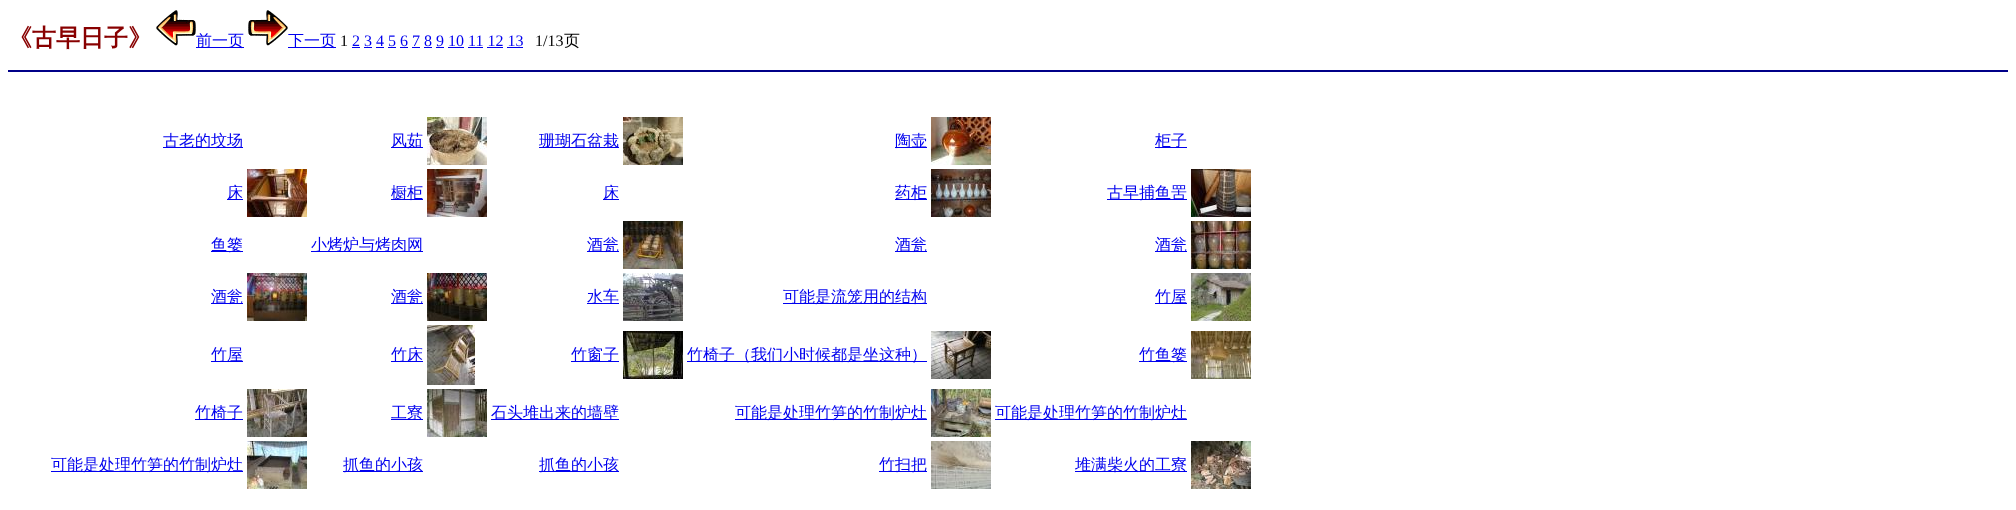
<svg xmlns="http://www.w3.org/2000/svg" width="2016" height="510">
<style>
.a{font:bold 24px WenQuanYi Zen Hei;fill:#800}
.b{font:500 16px WenQuanYi Zen Hei;fill:#00e}
.c{font:16px Liberation Serif;fill:#000}
.d{font:16px Liberation Serif;fill:#00e}
.e{font:500 16px WenQuanYi Zen Hei;fill:#000}
</style>
<rect width="100%" height="100%" fill="#fff"/>
<image href="1.png" x="156" y="10" width="40" height="36"/>
<path fill="#00e" d="M196 47h48v1H196z"/>
<image href="2.png" x="248" y="10" width="40" height="36"/>
<path fill="#00e" d="M288 47h48v1H288z"/>
<path fill="#00e" d="M352 47h8v1H352z"/>
<path fill="#00e" d="M364 47h8v1H364z"/>
<path fill="#00e" d="M376 47h8v1H376z"/>
<path fill="#00e" d="M388 47h8v1H388z"/>
<path fill="#00e" d="M400 47h8v1H400z"/>
<path fill="#00e" d="M412 47h8v1H412z"/>
<path fill="#00e" d="M424 47h8v1H424z"/>
<path fill="#00e" d="M436 47h8v1H436z"/>
<path fill="#00e" d="M448 47h16v1H448z"/>
<path fill="#00e" d="M468 47h15v1H468z"/>
<path fill="#00e" d="M487 47h16v1H487z"/>
<path fill="#00e" d="M507 47h16v1H507z"/>
<path fill="#008" d="M8 70h2000v2H8z"/>
<path fill="#00e" d="M163 147h80v1H163z"/>
<path fill="#00e" d="M391 147h32v1H391z"/>
<image href="3.png" x="427" y="117" width="60" height="48"/>
<path fill="#00e" d="M539 147h80v1H539z"/>
<image href="4.png" x="623" y="117" width="60" height="48"/>
<path fill="#00e" d="M895 147h32v1H895z"/>
<image href="5.png" x="931" y="117" width="60" height="48"/>
<path fill="#00e" d="M1155 147h32v1H1155z"/>
<path fill="#00e" d="M227 199h16v1H227z"/>
<image href="6.png" x="247" y="169" width="60" height="48"/>
<path fill="#00e" d="M391 199h32v1H391z"/>
<image href="7.png" x="427" y="169" width="60" height="48"/>
<path fill="#00e" d="M603 199h16v1H603z"/>
<path fill="#00e" d="M895 199h32v1H895z"/>
<image href="8.png" x="931" y="169" width="60" height="48"/>
<path fill="#00e" d="M1107 199h80v1H1107z"/>
<image href="9.png" x="1191" y="169" width="60" height="48"/>
<path fill="#00e" d="M211 251h32v1H211z"/>
<path fill="#00e" d="M311 251h112v1H311z"/>
<path fill="#00e" d="M587 251h32v1H587z"/>
<image href="10.png" x="623" y="221" width="60" height="48"/>
<path fill="#00e" d="M895 251h32v1H895z"/>
<path fill="#00e" d="M1155 251h32v1H1155z"/>
<image href="11.png" x="1191" y="221" width="60" height="48"/>
<path fill="#00e" d="M211 303h32v1H211z"/>
<image href="12.png" x="247" y="273" width="60" height="48"/>
<path fill="#00e" d="M391 303h32v1H391z"/>
<image href="13.png" x="427" y="273" width="60" height="48"/>
<path fill="#00e" d="M587 303h32v1H587z"/>
<image href="14.png" x="623" y="273" width="60" height="48"/>
<path fill="#00e" d="M783 303h144v1H783z"/>
<path fill="#00e" d="M1155 303h32v1H1155z"/>
<image href="15.png" x="1191" y="273" width="60" height="48"/>
<path fill="#00e" d="M211 361h32v1H211z"/>
<path fill="#00e" d="M391 361h32v1H391z"/>
<image href="16.png" x="427" y="325" width="48" height="60"/>
<path fill="#00e" d="M571 361h48v1H571z"/>
<image href="17.png" x="623" y="331" width="60" height="48"/>
<path fill="#00e" d="M687 361h240v1H687z"/>
<image href="18.png" x="931" y="331" width="60" height="48"/>
<path fill="#00e" d="M1139 361h48v1H1139z"/>
<image href="19.png" x="1191" y="331" width="60" height="48"/>
<path fill="#00e" d="M195 419h48v1H195z"/>
<image href="20.png" x="247" y="389" width="60" height="48"/>
<path fill="#00e" d="M391 419h32v1H391z"/>
<image href="21.png" x="427" y="389" width="60" height="48"/>
<path fill="#00e" d="M491 419h128v1H491z"/>
<path fill="#00e" d="M735 419h192v1H735z"/>
<image href="22.png" x="931" y="389" width="60" height="48"/>
<path fill="#00e" d="M995 419h192v1H995z"/>
<path fill="#00e" d="M51 471h192v1H51z"/>
<image href="23.png" x="247" y="441" width="60" height="48"/>
<path fill="#00e" d="M343 471h80v1H343z"/>
<path fill="#00e" d="M539 471h80v1H539z"/>
<path fill="#00e" d="M879 471h48v1H879z"/>
<image href="24.png" x="931" y="441" width="60" height="48"/>
<path fill="#00e" d="M1075 471h112v1H1075z"/>
<image href="25.png" x="1191" y="441" width="60" height="48"/>
<text class="a" x="8" y="46">《古早日子》</text>
<text class="b" x="196" y="46">前一页</text>
<text class="b" x="288" y="46">下一页</text>
<text class="c" x="340" y="46">1</text>
<text class="d" x="352" y="46">2 3 4 5 6 7 8 9 10 11 12 13</text>
<text class="c" x="535" y="46">1/13</text>
<text class="e" x="564" y="46">页</text>
<text class="b" x="163" y="146">古老的坟场</text>
<text class="b" x="391" y="146">风茹</text>
<text class="b" x="539" y="146">珊瑚石盆栽</text>
<text class="b" x="895" y="146">陶壶</text>
<text class="b" x="1155" y="146">柜子</text>
<text class="b" x="227" y="198">床</text>
<text class="b" x="391" y="198">橱柜</text>
<text class="b" x="603" y="198">床</text>
<text class="b" x="895" y="198">药柜</text>
<text class="b" x="1107" y="198">古早捕鱼罟</text>
<text class="b" x="211" y="250">鱼篓</text>
<text class="b" x="311" y="250">小烤炉与烤肉网</text>
<text class="b" x="587" y="250">酒瓮</text>
<text class="b" x="895" y="250">酒瓮</text>
<text class="b" x="1155" y="250">酒瓮</text>
<text class="b" x="211" y="302">酒瓮</text>
<text class="b" x="391" y="302">酒瓮</text>
<text class="b" x="587" y="302">水车</text>
<text class="b" x="783" y="302">可能是流笼用的结构</text>
<text class="b" x="1155" y="302">竹屋</text>
<text class="b" x="211" y="360">竹屋</text>
<text class="b" x="391" y="360">竹床</text>
<text class="b" x="571" y="360">竹窗子</text>
<text class="b" x="687" y="360">竹椅子（我们小时候都是坐这种）</text>
<text class="b" x="1139" y="360">竹鱼篓</text>
<text class="b" x="195" y="418">竹椅子</text>
<text class="b" x="391" y="418">工寮</text>
<text class="b" x="491" y="418">石头堆出来的墙壁</text>
<text class="b" x="735" y="418">可能是处理竹笋的竹制炉灶</text>
<text class="b" x="995" y="418">可能是处理竹笋的竹制炉灶</text>
<text class="b" x="51" y="470">可能是处理竹笋的竹制炉灶</text>
<text class="b" x="343" y="470">抓鱼的小孩</text>
<text class="b" x="539" y="470">抓鱼的小孩</text>
<text class="b" x="879" y="470">竹扫把</text>
<text class="b" x="1075" y="470">堆满柴火的工寮</text>
</svg>
